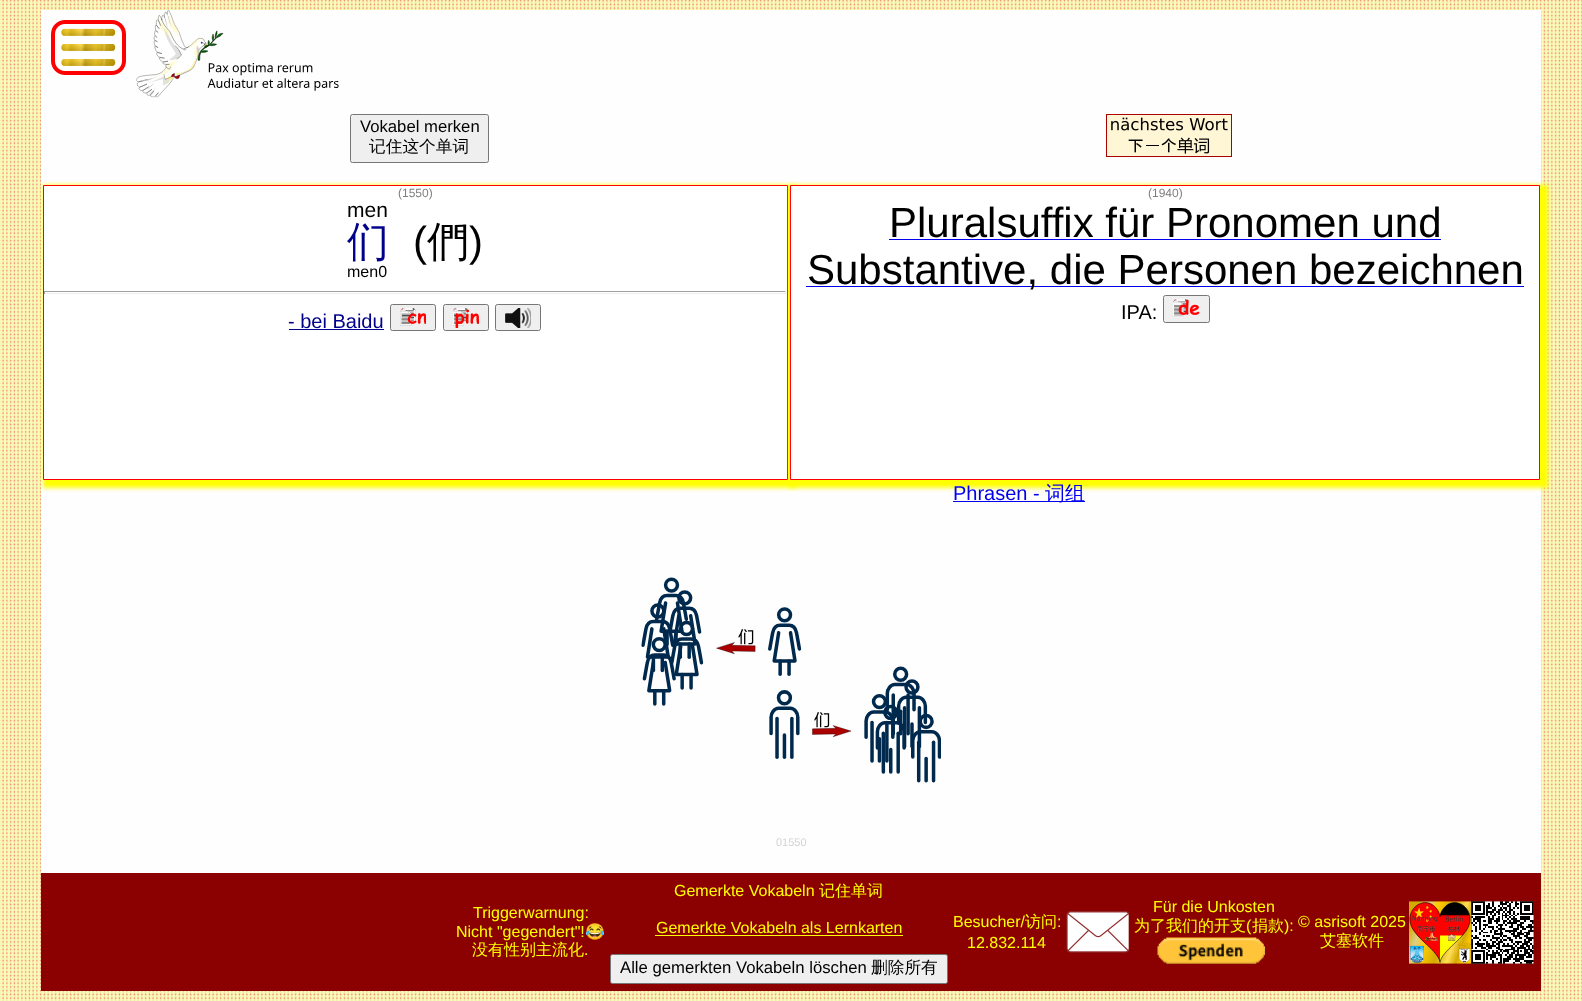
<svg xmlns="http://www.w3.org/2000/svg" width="1582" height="1001">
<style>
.a{font:16.7px Liberation Sans;fill:#000}
.b{font:500 16.7px WenQuanYi Zen Hei;fill:#000}
.c{font:12px Liberation Sans;fill:#808080}
.d{font:21px Liberation Sans;fill:#000}
.e{font:500 42px WenQuanYi Zen Hei;fill:#00008b}
.f{font:16px Liberation Sans;fill:#000}
.g{font:42px Liberation Sans;fill:#000}
.h{font:500 42px WenQuanYi Zen Hei;fill:#000}
.i{font:20px Liberation Sans;fill:#00008b}
.j{font:20px Liberation Sans;fill:#000}
.k{font:20px Liberation Sans;fill:#00e}
.l{font:500 20px WenQuanYi Zen Hei;fill:#00e}
.m{font:11px Liberation Sans;fill:#d3d3d3}
.n{font:16px Liberation Sans;fill:#ff0}
.o{font:16px Noto Color Emoji;fill:#ff0}
.p{font:500 16px WenQuanYi Zen Hei;fill:#ff0}
</style>
<rect width="100%" height="100%" fill="#fff"/>
<image href="1.png" x="0" y="0" width="1582" height="1001"/>
<path fill="#fffefe" d="M41 10h1500v863H41z"/>
<image href="2.png" x="51" y="20" width="75" height="55"/>
<image href="3.png" x="136" y="10" width="203" height="88"/>
<rect fill="#efefef" stroke="#767676" x="350.5" y="114.5" width="138" height="48" rx="2"/>
<image href="4.png" x="1106" y="114" width="126" height="43"/>
<path fill="#ff0" filter="blur(2px)" d="M43 185h752v303H43z"/>
<path fill="#fff" stroke="#f00" d="M43.5 185.5h744v294H43.5z"/>
<path fill="#ff0" filter="blur(2px)" d="M790 185h758v303H790z"/>
<path fill="#9f9f9f" d="M44 291h742v1H44z"/>
<path fill="#eee" d="M785 291h1v3H785z"/>
<path fill="#eee" d="M44 293h742v1H44z"/>
<path fill="#9f9f9f" d="M44 291h1v3H44z"/>
<path fill="#00008b" d="M289 329h95v1H289z"/>
<rect fill="#efefef" stroke="#767676" x="390.5" y="304.5" width="45" height="26" rx="2"/>
<image href="5.png" x="400" y="308" width="26" height="18"/>
<rect fill="#efefef" stroke="#767676" x="443.5" y="304.5" width="45" height="26" rx="2"/>
<image href="6.png" x="453" y="308" width="26" height="20"/>
<rect fill="#efefef" stroke="#767676" x="495.5" y="304.5" width="45" height="26" rx="2"/>
<image href="7.png" x="505" y="308" width="26" height="20"/>
<path fill="#fff" stroke="#f00" d="M790.5 185.5h749v294H790.5z"/>
<path fill="#00e" d="M889 239h552v1H889z"/>
<path fill="#00e" d="M806 286h718v1H806z"/>
<rect fill="#efefef" stroke="#767676" x="1163.5" y="295.5" width="46" height="27" rx="2"/>
<image href="8.png" x="1173" y="299" width="27" height="18"/>
<path fill="#00e" d="M953 501h132v1H953z"/>
<image href="9.png" x="641" y="577" width="300" height="206"/>
<path fill="#8b0000" d="M41 873h1500v118H41z"/>
<path fill="#ff0" d="M655 935h248v1H655z"/>
<rect fill="#efefef" stroke="#767676" x="610.5" y="954.5" width="337" height="29" rx="2"/>
<image href="10.png" x="1066" y="911" width="63" height="42"/>
<image href="11.png" x="1157" y="937" width="108" height="27"/>
<image href="12.png" x="1409" y="901" width="62" height="63"/>
<image href="13.png" x="1471" y="901" width="63" height="63"/>
<text class="a" x="360" y="132">Vokabel merken</text>
<text class="b" x="369" y="152">记住这个单词</text>
<text class="c" x="398" y="197">(1550)</text>
<text class="d" x="347" y="217">men</text>
<text class="e" x="347" y="256">们</text>
<text class="f" x="347" y="277">men0</text>
<text class="g" x="413" y="256">(</text>
<text class="h" x="427" y="256">們</text>
<text class="g" x="469" y="256">)</text>
<text class="i" x="288" y="328">- bei Baidu</text>
<text class="c" x="1148" y="197">(1940)</text>
<text class="g" x="889" y="237">Pluralsuffix für Pronomen und</text>
<text class="g" x="807" y="284">Substantive, die Personen bezeichnen</text>
<text class="j" x="1121" y="319">IPA:</text>
<text class="k" x="953" y="500">Phrasen -</text>
<text class="l" x="1045" y="500">词组</text>
<text class="m" x="776" y="846">01550</text>
<text class="n" x="473" y="918">Triggerwarnung:</text>
<text class="n" x="456" y="937">Nicht "gegendert"!</text>
<text class="o" x="585" y="937">😂</text>
<text class="p" x="472" y="955">没有性别主流化</text>
<text class="n" x="584" y="955">.</text>
<text class="n" x="674" y="896">Gemerkte Vokabeln</text>
<text class="p" x="819" y="896">记住单词</text>
<text class="n" x="656" y="933">Gemerkte Vokabeln als Lernkarten</text>
<text class="a" x="620" y="973">Alle gemerkten Vokabeln löschen</text>
<text class="b" x="871" y="973">删除所有</text>
<text class="n" x="953" y="927">Besucher/</text>
<text class="p" x="1025" y="927">访问</text>
<text class="n" x="1057" y="927">:</text>
<text class="n" x="967" y="948">12.832.114</text>
<text class="n" x="1153" y="912">Für die Unkosten</text>
<text class="p" x="1134" y="931">为了我们的开支</text>
<text class="n" x="1246" y="931">(</text>
<text class="p" x="1252" y="931">捐款</text>
<text class="n" x="1284" y="931">):</text>
<text class="n" x="1298" y="927">© asrisoft 2025</text>
<text class="p" x="1320" y="946">艾塞软件</text>
</svg>
